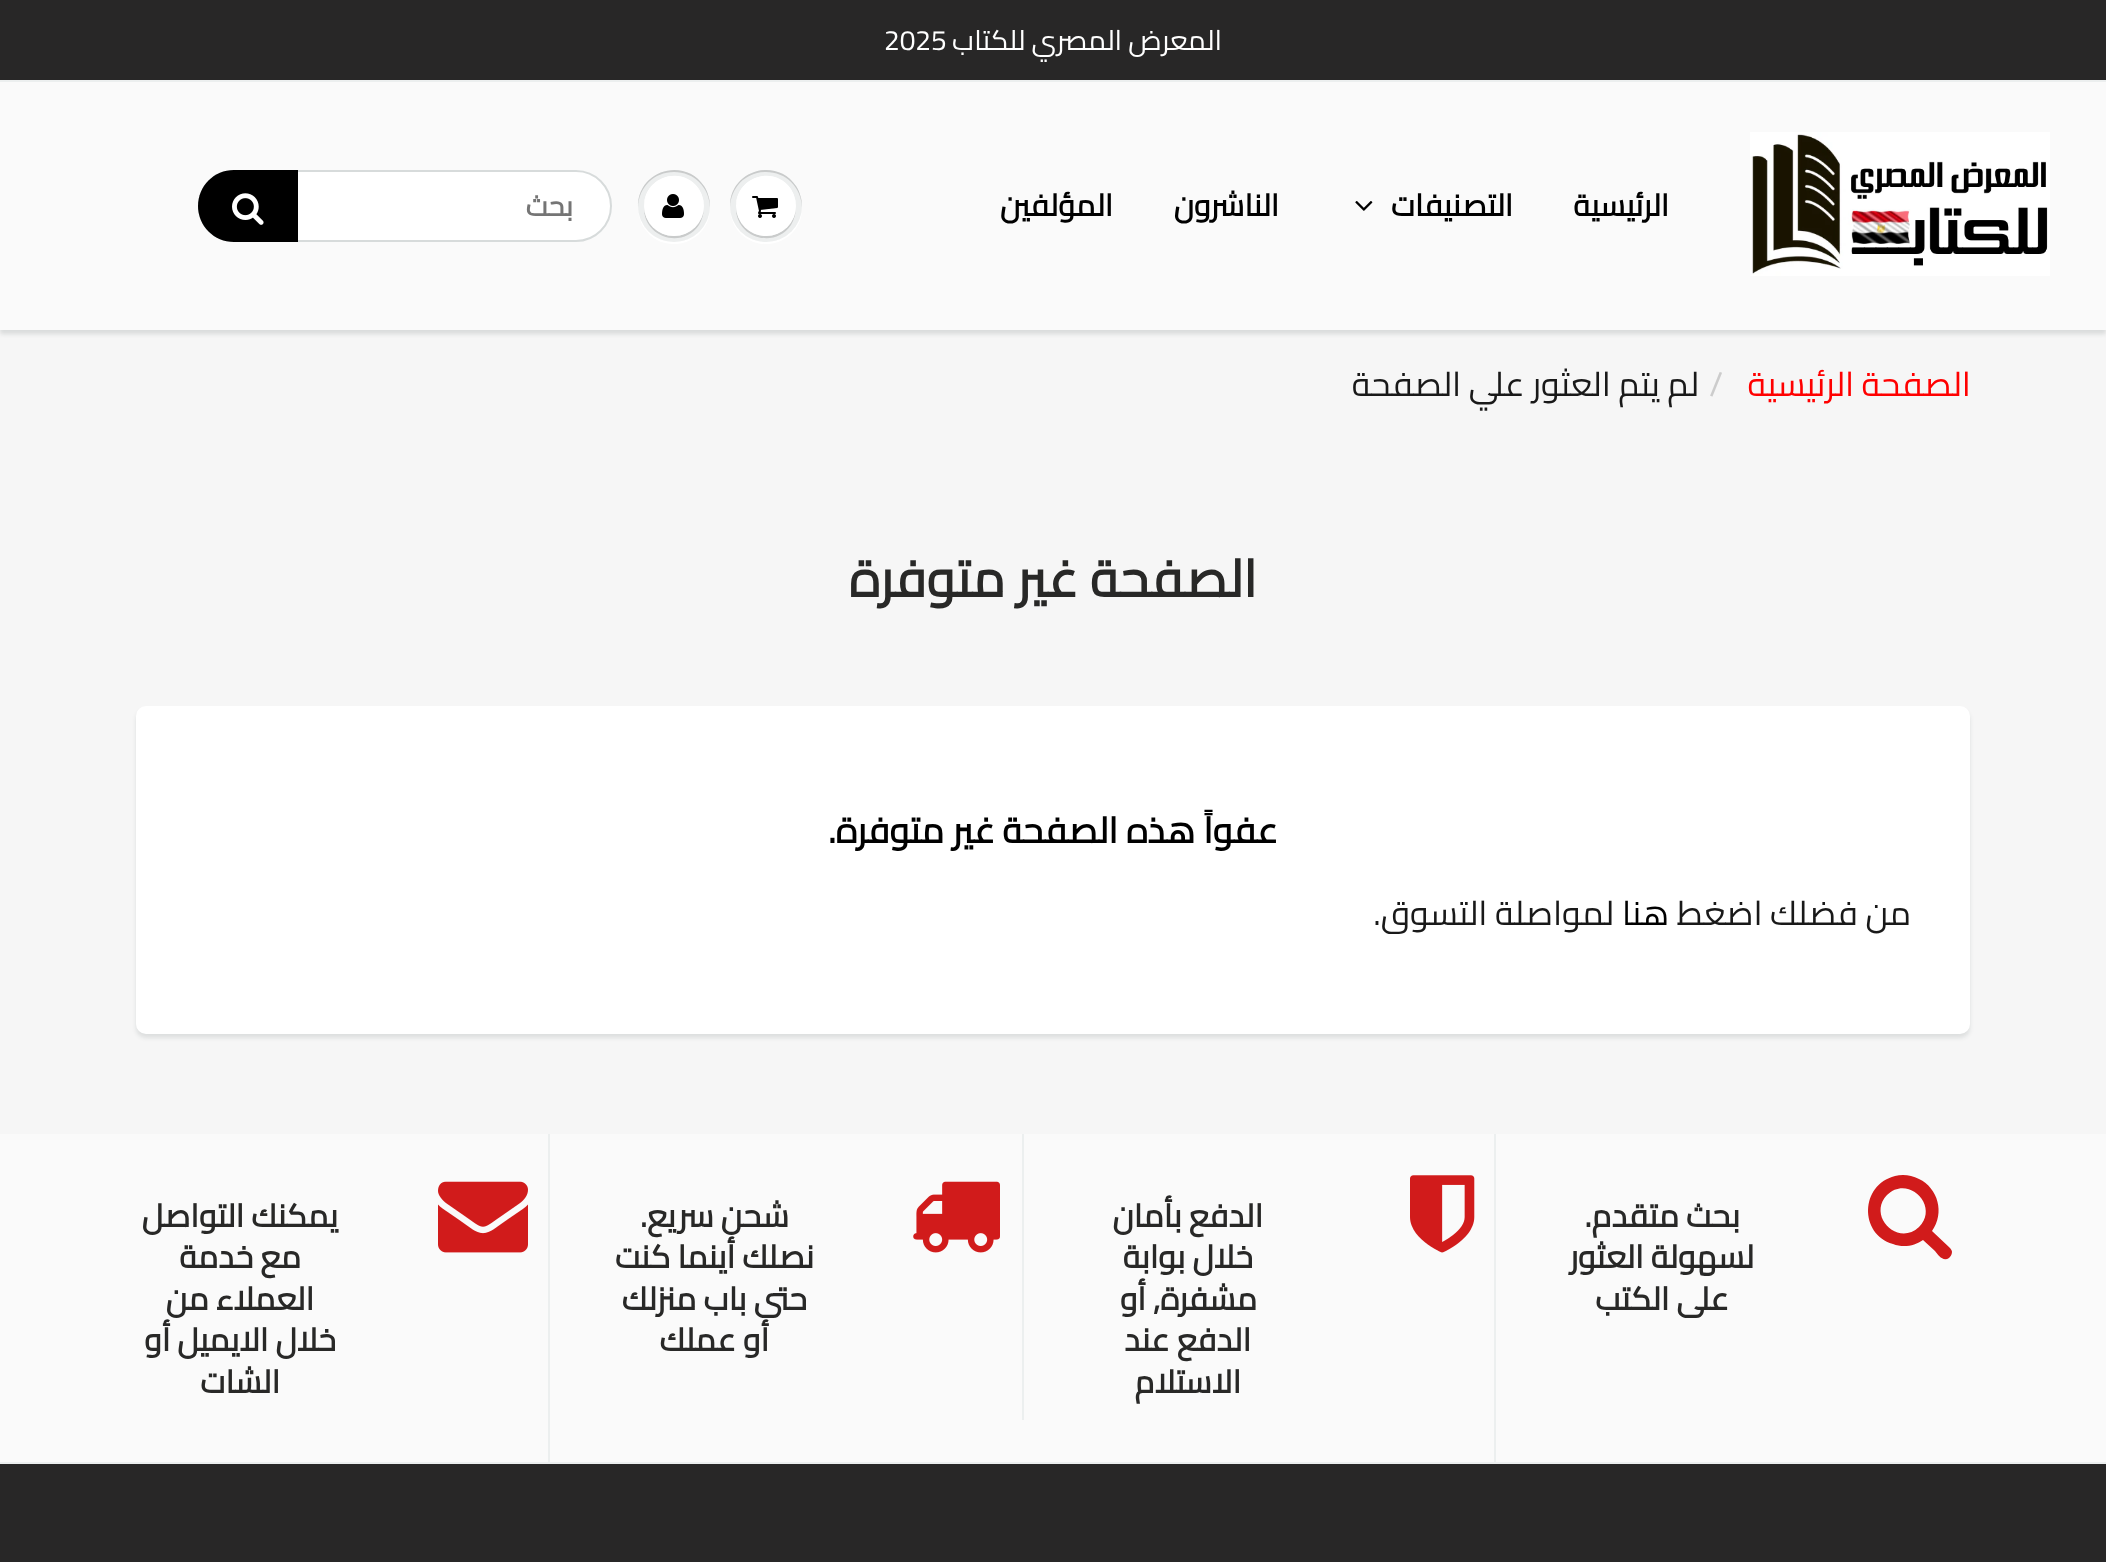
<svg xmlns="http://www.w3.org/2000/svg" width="2106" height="1562">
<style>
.a{font:28px Cairo;direction:rtl;fill:#fff}
.b{font:28px Cairo;fill:#fff}
.c{font:bold 30.5px Cairo;direction:rtl;fill:#000}
.d{font:bold 28px Cairo;direction:rtl;fill:#757575}
.e{font:34px Cairo;direction:rtl;fill:#f00}
.f{font:34px Cairo;fill:#ccc}
.g{font:34px Cairo;direction:rtl;fill:#191919}
.h{font:bold 52px Cairo;direction:rtl;fill:#282827}
.i{font:bold 36px Cairo;direction:rtl;fill:#000}
.j{font:34px Cairo;direction:rtl;fill:#000}
.k{font:bold 32px Cairo;direction:rtl;fill:#282827}
</style>
<rect width="100%" height="100%" fill="#282727"/>
<path fill="#f6f6f6" d="M0 330h2106v804H0z"/>
<path fill="#0b191c1f" filter="blur(2px)" d="M0 84h2106v250H0z"/>
<path fill="#fafafa" d="M0 82h2106v248H0z"/>
<path fill="#ecefef" d="M0 80h2106v2H0z"/>
<image href="1.png" x="1750" y="132" width="300" height="144"/>
<image href="2.png" x="1355" y="201" width="18" height="10"/>
<path fill="#fff" d="M802 207c-1 19-16 35-36 35c-20 0-35-16-36-35c0 7 2 15 6 21c20 30 67 15 66-21z"/>
<circle fill="#edefef" cx="766" cy="206" r="36"/>
<path fill="#c9cbcb" d="M736 207c-1 30 38 43 55 18c3-5 5-12 5-18c-1 16-14 29-30 29c-16 0-29-13-30-29z"/>
<path fill="#c9cbcb" d="M766 172c20 0 35 15 36 35c0-7-2-15-6-21c-20-30-67-15-66 21c1-20 16-35 36-35z"/>
<circle fill="#fff" cx="766" cy="206" r="30"/>
<path fill="#fff" d="M766 178c17 0 29 12 30 29c0-6-2-13-5-18c-17-25-56-12-55 18c1-17 13-29 30-29z"/>
<image href="3.png" x="752" y="196" width="26" height="22"/>
<path fill="#fff" d="M710 207c-1 19-16 35-36 35c-20 0-35-16-36-35c0 7 2 15 6 21c20 30 67 15 66-21z"/>
<circle fill="#edefef" cx="674" cy="206" r="36"/>
<path fill="#c9cbcb" d="M644 207c-1 30 38 43 55 18c3-5 5-12 5-18c-1 16-14 29-30 29c-16 0-29-13-30-29z"/>
<path fill="#c9cbcb" d="M674 172c20 0 35 15 36 35c0-7-2-15-6-21c-20-30-67-15-66 21c1-20 16-35 36-35z"/>
<circle fill="#fff" cx="674" cy="206" r="30"/>
<path fill="#fff" d="M674 178c17 0 29 12 30 29c0-6-2-13-5-18c-17-25-56-12-55 18c1-17 13-29 30-29z"/>
<image href="4.png" x="662" y="194" width="22" height="24"/>
<rect fill="#fff" stroke="#d7dbdb" stroke-width="2" x="199" y="171" width="412" height="70" rx="35"/>
<path fill="#000" d="M234 170h64v72h-64c-20 0-36-16-36-36c0-20 16-36 36-36z"/>
<image href="5.png" x="232" y="193" width="32" height="32"/>
<rect fill="#0b191c1a" filter="blur(2px)" x="136" y="710" width="1834" height="328" rx="10"/>
<rect fill="#fff" x="136" y="706" width="1834" height="328" rx="10"/>
<path fill="#fafafa" d="M0 1134h2106v328H0z"/>
<path fill="#d11b1b" d="M1919 1227c21-21-11-53-32-32c-20 21 11 52 32 32zm33 25c0 3-2 5-3 6c-6 4-11-3-14-7l-12-11c-8 6-20 8-30 4c-34-10-33-59 2-68c8-2 16-1 24 3c19 9 26 34 13 52l18 17c1 1 2 3 2 4z"/>
<path fill="#ecefef" d="M1494 1134h2v328H1494z"/>
<image href="6.png" x="1410" y="1175" width="65" height="78"/>
<path fill="#ecefef" d="M1022 1134h2v286H1022z"/>
<image href="7.png" x="913" y="1181" width="87" height="72"/>
<path fill="#ecefef" d="M548 1134h2v328H548z"/>
<image href="8.png" x="438" y="1181" width="90" height="72"/>
<path fill="#ecefef" d="M0 1462h2106v2H0z"/>
<text class="a" x="1222" y="50">المعرض المصري للكتاب</text>
<text class="b" x="884" y="50">2025</text>
<text class="c" x="1669" y="216">الرئيسية</text>
<text class="c" x="1513" y="216">التصنيفات</text>
<text class="c" x="1279" y="216">الناشرون</text>
<text class="c" x="1113" y="216">المؤلفين</text>
<text class="d" x="573" y="216">بحث</text>
<text class="e" x="1971" y="396">الصفحة الرئيسية</text>
<text class="f" x="1709" y="396">/</text>
<text class="g" x="1699" y="396">لم يتم العثور علي الصفحة</text>
<text class="h" x="1257" y="597">الصفحة غير متوفرة</text>
<text class="i" x="1278" y="843">عفواً هذه</text>
<text class="i" x="1118" y="843">الصفحة</text>
<text class="i" x="995" y="843">غير</text>
<text class="i" x="944" y="843">متوفرة.</text>
<text class="g" x="1911" y="925">من فضلك اضغط</text>
<text class="j" x="1669" y="925">هنا</text>
<text class="g" x="1614" y="925">لمواصلة التسوق.</text>
<text class="k" x="1740" y="1227">بحث متقدم.</text>
<text class="k" x="1754" y="1268">لسهولة العثور</text>
<text class="k" x="1729" y="1310">على الكتب</text>
<text class="k" x="1263" y="1227">الدفع بأمان</text>
<text class="k" x="1253" y="1268">خلال بوابة</text>
<text class="k" x="1257" y="1310">مشفرة, أو</text>
<text class="k" x="1251" y="1351">الدفع عند</text>
<text class="k" x="1241" y="1393">الاستلام</text>
<text class="k" x="789" y="1227">شحن سريع.</text>
<text class="k" x="814" y="1268">نصلك أينما كنت</text>
<text class="k" x="807" y="1310">حتى باب منزلك</text>
<text class="k" x="769" y="1351">أو عملك</text>
<text class="k" x="338" y="1227">يمكنك التواصل</text>
<text class="k" x="301" y="1268">مع خدمة</text>
<text class="k" x="314" y="1310">العملاء من</text>
<text class="k" x="336" y="1351">خلال الايميل أو</text>
<text class="k" x="280" y="1393">الشات</text>
</svg>
